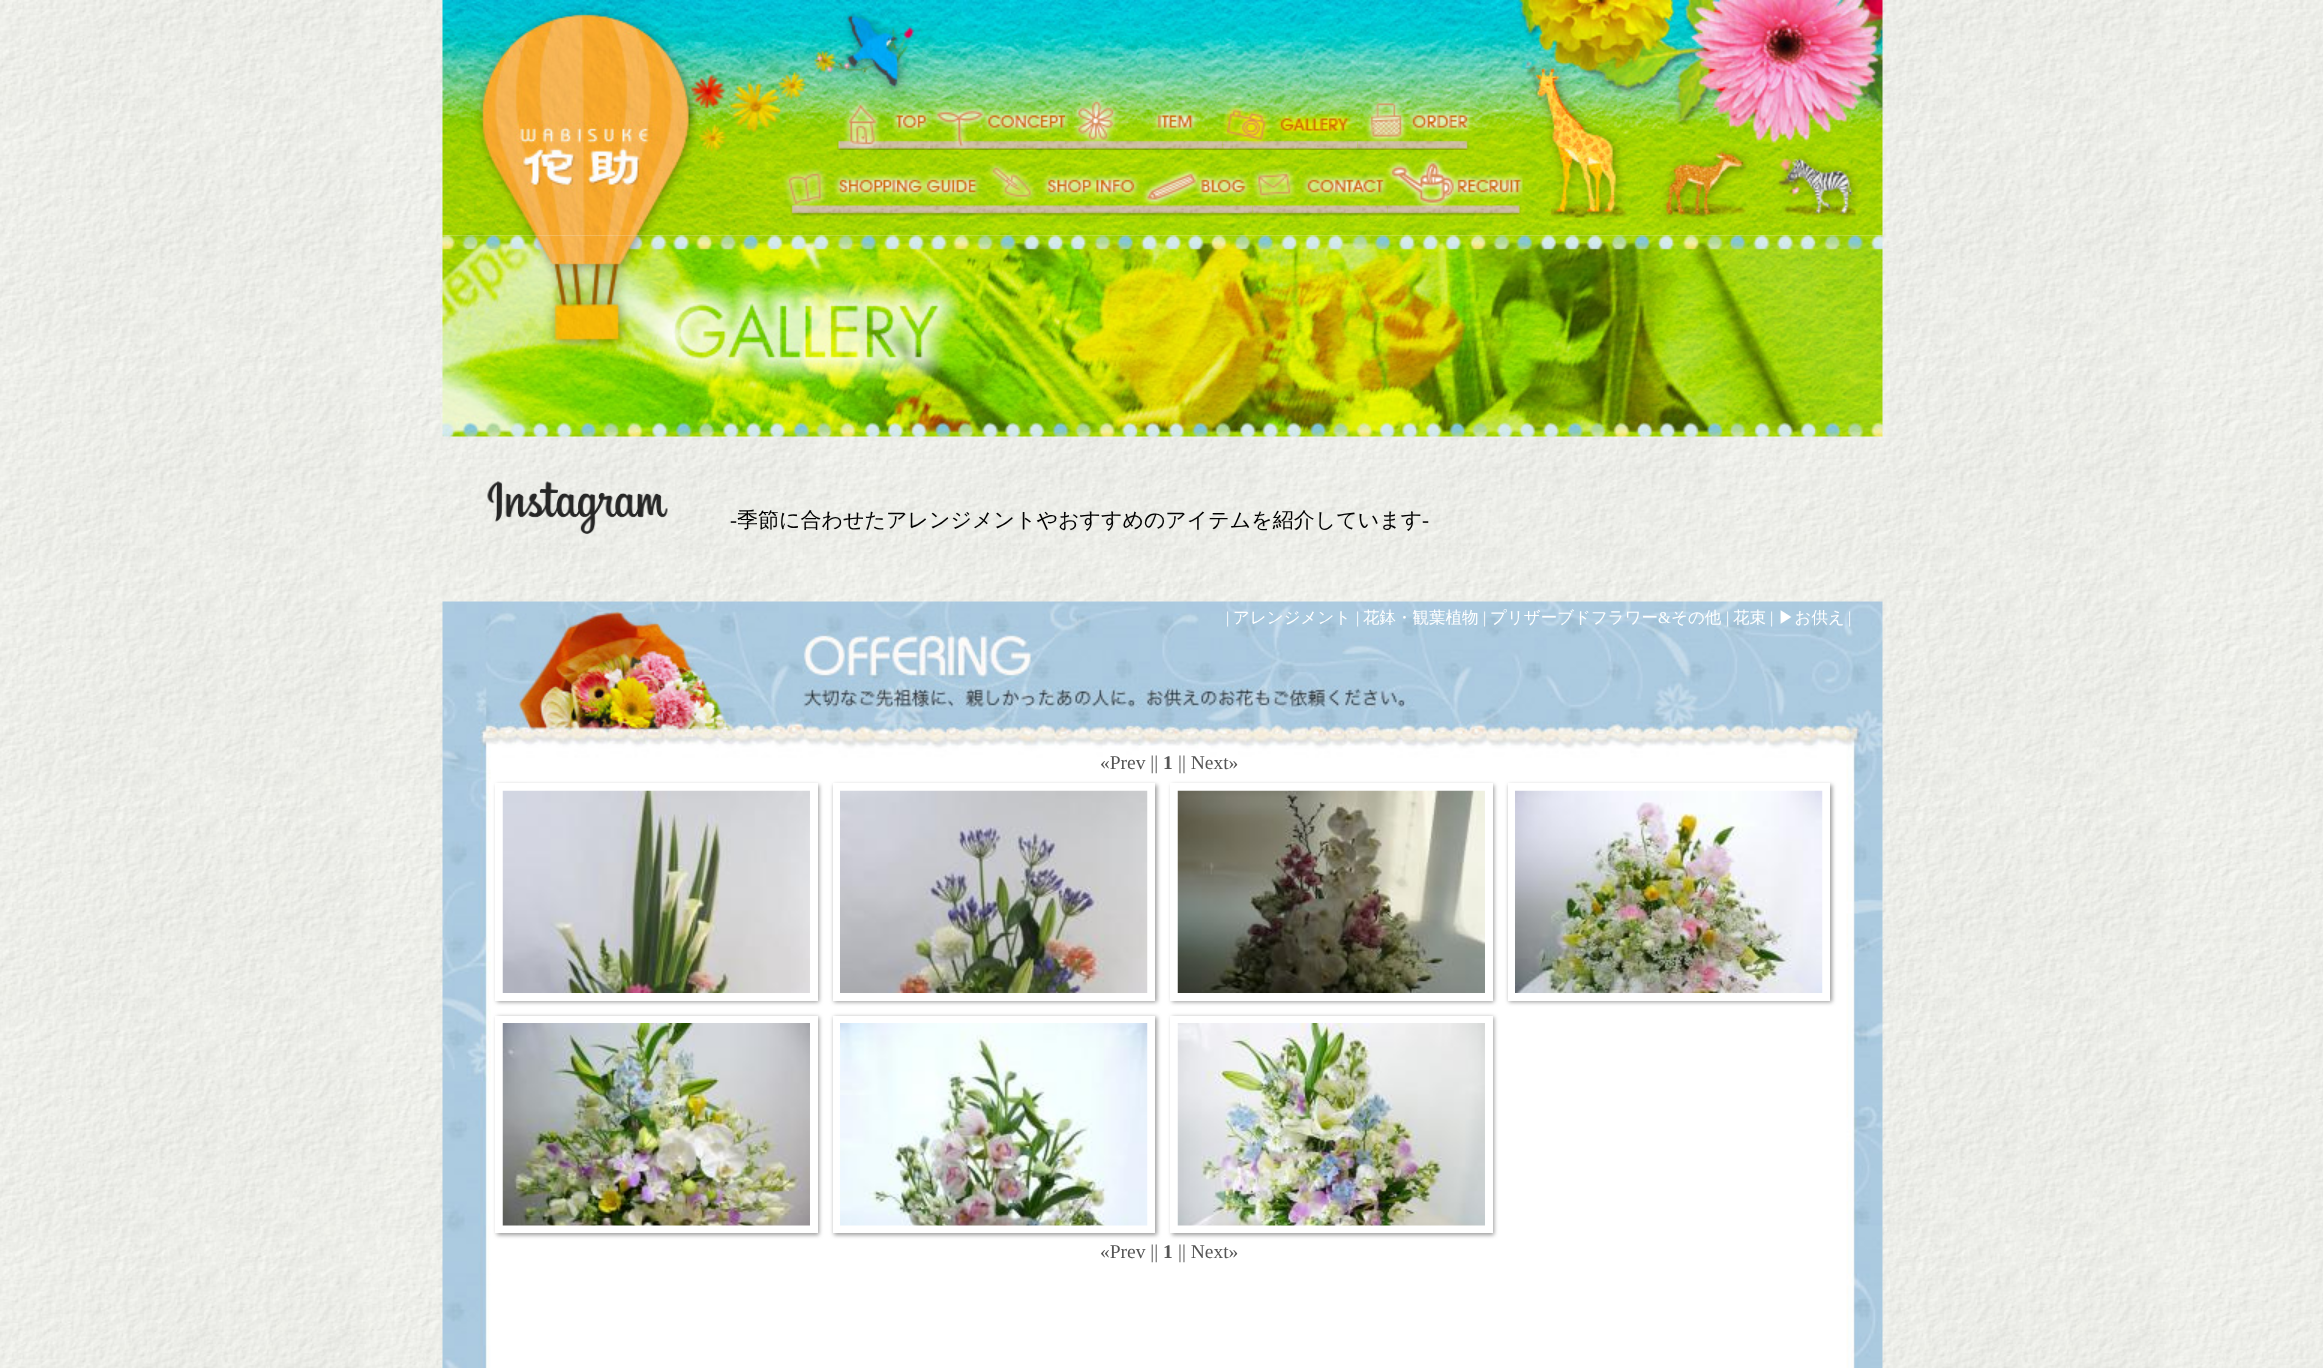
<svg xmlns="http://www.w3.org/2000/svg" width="2323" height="1368">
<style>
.a{font:21px Liberation Serif;fill:#000}
.b{font:500 21px WenQuanYi Zen Hei;fill:#000}
.c{font:16.5px Liberation Serif;fill:#fff}
.d{font:500 16.5px WenQuanYi Zen Hei;fill:#fff}
.e{font:19.5px Liberation Serif;fill:#555}
.f{font:bold 19.5px Liberation Serif;fill:#555}
</style>
<defs>
<clipPath id="clip1"><path d="M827 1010h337v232h-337zm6 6h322v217h-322z" clip-rule="evenodd"/></clipPath>
</defs>
<rect width="100%" height="100%" fill="#fff"/>
<image href="1.png" x="0" y="0" width="2323" height="1368"/>
<image href="2.png" x="442" y="0" width="1441" height="236"/>
<image href="3.png" x="837" y="100" width="93" height="50"/>
<image href="4.png" x="930" y="105" width="135" height="45"/>
<image href="5.png" x="1065" y="97" width="158" height="53"/>
<image href="6.png" x="1222" y="104" width="136" height="46"/>
<image href="7.png" x="1357" y="97" width="116" height="53"/>
<image href="8.png" x="783" y="165" width="207" height="51"/>
<image href="9.png" x="990" y="163" width="150" height="53"/>
<image href="10.png" x="1140" y="169" width="113" height="47"/>
<image href="11.png" x="1252" y="168" width="136" height="48"/>
<image href="12.png" x="1387" y="158" width="136" height="58"/>
<image href="13.png" x="442" y="235" width="1441" height="202"/>
<image href="14.png" x="487" y="481" width="181" height="53"/>
<image href="15.png" x="442" y="601" width="1441" height="767"/>
<path fill="#999" filter="blur(2px)" d="M497 785h322v217H497z"/>
<path fill="none" stroke="#fff" stroke-width="8" d="M499 787h315v210H499z"/>
<image href="16.png" x="502" y="790" width="308" height="203"/>
<path fill="#999" filter="blur(2px)" d="M834 785h323v217H834z"/>
<path fill="none" stroke="#fff" stroke-width="8" d="M837 787h314v210H837z"/>
<image href="17.png" x="840" y="790" width="308" height="203"/>
<path fill="#999" filter="blur(2px)" d="M1172 785h322v217H1172z"/>
<path fill="none" stroke="#fff" stroke-width="8" d="M1174 787h315v210H1174z"/>
<image href="18.png" x="1177" y="790" width="308" height="203"/>
<path fill="#999" filter="blur(2px)" d="M1509 785h323v217H1509z"/>
<path fill="none" stroke="#fff" stroke-width="8" d="M1512 787h314v210H1512z"/>
<image href="19.png" x="1515" y="790" width="308" height="203"/>
<path fill="#999" filter="blur(2px)" d="M497 1017h322v218H497z"/>
<path fill="none" stroke="#fff" stroke-width="8" d="M499 1020h315v209H499z"/>
<image href="20.png" x="502" y="1023" width="308" height="203"/>
<g clip-path="url(#clip1)">
<path fill="#999" filter="blur(2px)" d="M834 1017h323v218H834z"/>
</g>
<image href="21.png" x="840" y="1023" width="308" height="203"/>
<path fill="#999" filter="blur(2px)" d="M1172 1017h322v218H1172z"/>
<path fill="none" stroke="#fff" stroke-width="8" d="M1174 1020h315v209H1174z"/>
<image href="22.png" x="1177" y="1023" width="308" height="203"/>
<text class="a" x="730" y="527">-</text>
<text class="b" x="737" y="527">季節に合わせたアレンジメントやおすすめのアイテムを紹介しています</text>
<text class="a" x="1422" y="527">-</text>
<text class="c" x="1226" y="623">|</text>
<text class="d" x="1233" y="623">アレンジメント</text>
<text class="c" x="1356" y="623">|</text>
<text class="d" x="1363" y="623">花鉢・観葉植物</text>
<text class="c" x="1483" y="623">|</text>
<text class="d" x="1490" y="623">プリザーブドフラワー</text>
<text class="c" x="1658" y="623">&amp;</text>
<text class="d" x="1671" y="623">その他</text>
<text class="c" x="1726" y="623">|</text>
<text class="d" x="1733" y="623">花束</text>
<text class="c" x="1770" y="623">|</text>
<text class="d" x="1778" y="623">▶お供え</text>
<text class="c" x="1848" y="623">|</text>
<text class="e" x="1100" y="769">«Prev ||</text>
<text class="f" x="1163" y="769">1</text>
<text class="e" x="1178" y="769">|| Next»</text>
<text class="e" x="1100" y="1258">«Prev ||</text>
<text class="f" x="1163" y="1258">1</text>
<text class="e" x="1178" y="1258">|| Next»</text>
</svg>
